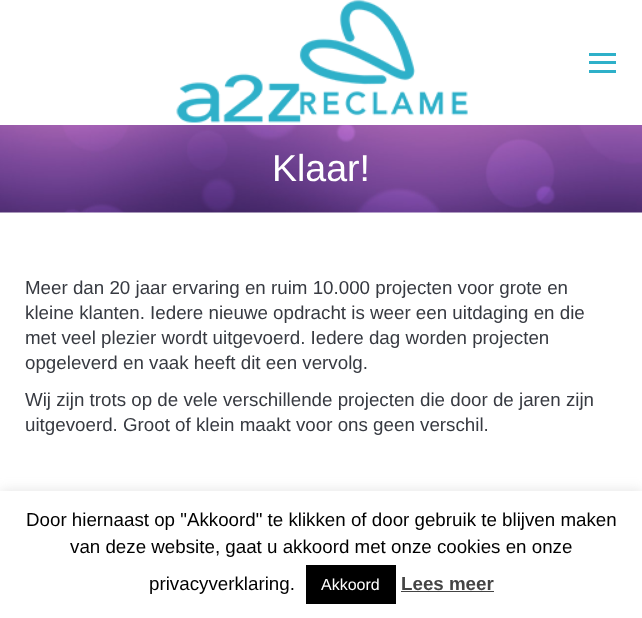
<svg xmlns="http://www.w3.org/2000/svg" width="642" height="618">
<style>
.a{font:37.5px Liberation Sans;fill:#fff}
.b{font:18.75px Liberation Sans;fill:#373a41}
.c{font:18.75px Liberation Sans;fill:#000}
.d{font:16px Liberation Sans;fill:#fff}
.e{font:bold 18.75px Liberation Sans;fill:#444}
</style>
<rect width="100%" height="100%" fill="#fff"/>
<image href="1.png" x="176" y="0" width="292" height="123"/>
<path fill="#2eb0c9" d="M589 53h27v3H589z"/>
<path fill="#2eb0c9" d="M589 61h27v3H589z"/>
<path fill="#2eb0c9" d="M589 70h27v3H589z"/>
<image href="2.png" x="0" y="125" width="642" height="88"/>
<path fill="#acabab4d" filter="blur(6px)" d="M0 490h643v128H0z"/>
<path fill="#fff" d="M0 491h642v127H0z"/>
<path fill="#000" d="M306 565h90v39H306z"/>
<path fill="#444" d="M401 591h93v1H401z"/>
<text class="a" x="272" y="181">Klaar!</text>
<text class="b" x="25" y="294">Meer dan 20 jaar ervaring en ruim 10.000 projecten voor grote en</text>
<text class="b" x="25" y="319">kleine klanten. Iedere nieuwe opdracht is weer een uitdaging en die</text>
<text class="b" x="25" y="344">met veel plezier wordt uitgevoerd. Iedere dag worden projecten</text>
<text class="b" x="25" y="369">opgeleverd en vaak heeft dit een vervolg.</text>
<text class="b" x="25" y="406">Wij zijn trots op de vele verschillende projecten die door de jaren zijn</text>
<text class="b" x="25" y="431">uitgevoerd. Groot of klein maakt voor ons geen verschil.</text>
<text class="c" x="26" y="526">Door hiernaast op "Akkoord" te klikken of door gebruik te blijven maken</text>
<text class="c" x="70" y="553">van deze website, gaat u akkoord met onze cookies en onze</text>
<text class="c" x="149" y="590">privacyverklaring.</text>
<text class="d" x="321" y="590">Akkoord</text>
<text class="e" x="401" y="590">Lees meer</text>
</svg>
